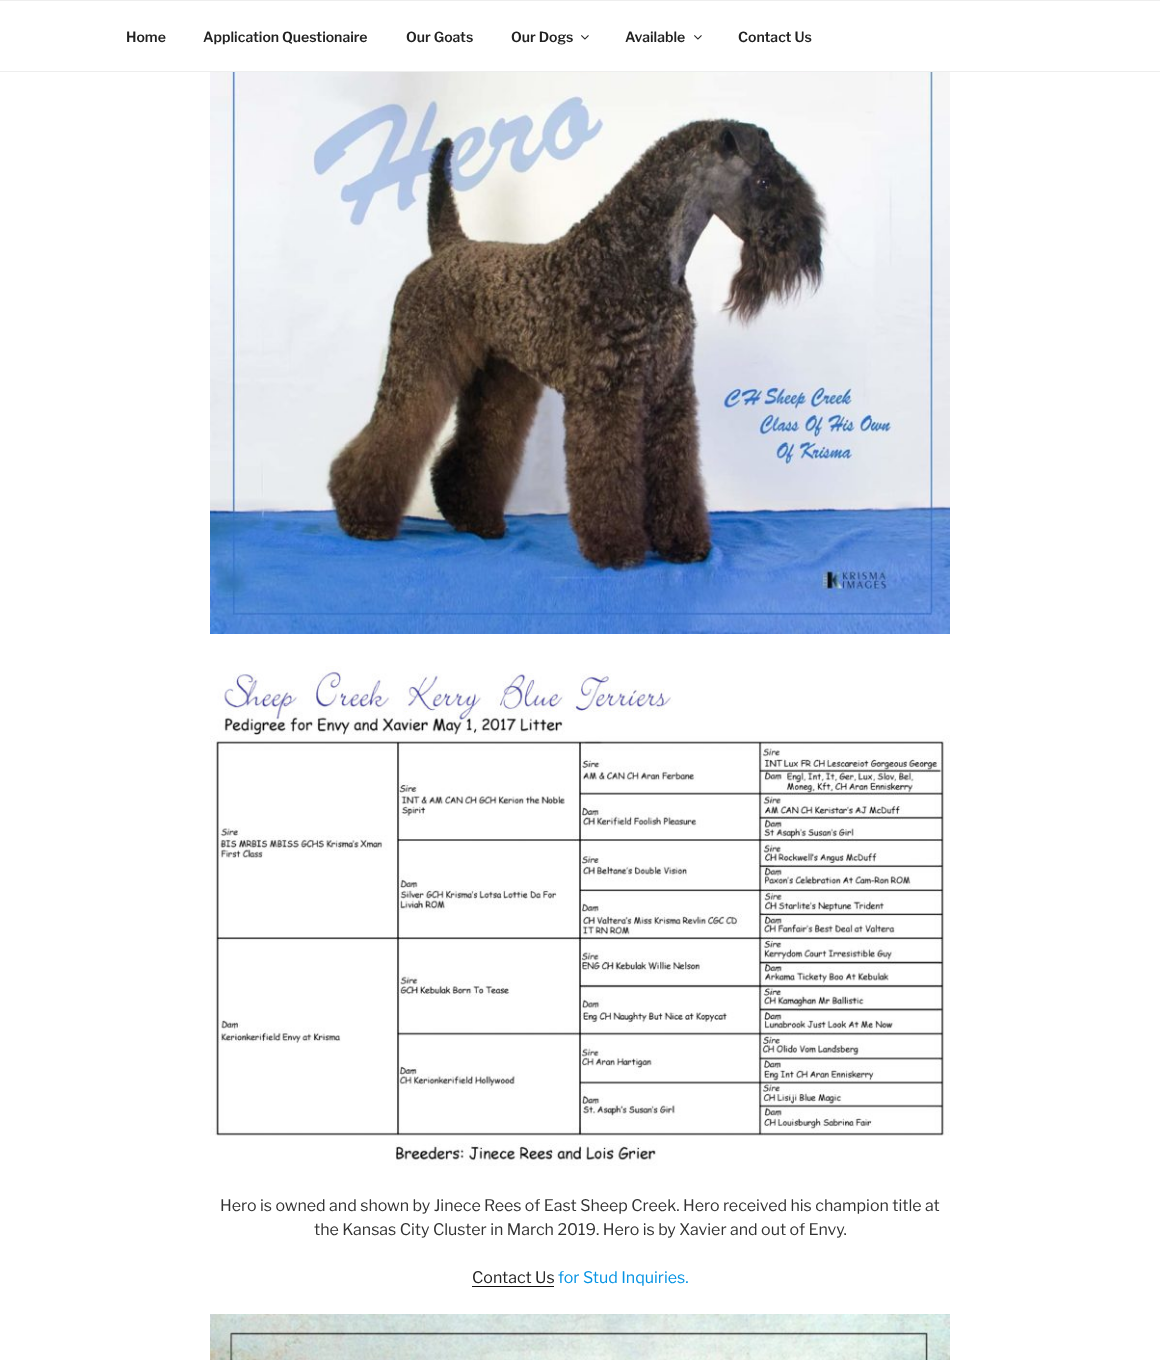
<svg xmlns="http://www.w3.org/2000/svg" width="1160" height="1360">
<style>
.a{font:100 14px 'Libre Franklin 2';fill:#222}
.b{font:100 16px Libre Franklin;fill:#333}
.c{font:100 16px Libre Franklin;fill:#222}
.d{font:100 16px Libre Franklin;fill:#0693e3}
</style>
<rect width="100%" height="100%" fill="#fff"/>
<path fill="#eee" d="M0 0h1160v1H0z"/>
<path fill="#eee" d="M0 71h1160v1H0z"/>
<image href="1.png" x="581" y="35" width="8" height="5"/>
<image href="1.png" x="694" y="35" width="8" height="5"/>
<image href="2.png" x="210" y="72" width="740" height="562"/>
<image href="3.png" x="210" y="666" width="740" height="500"/>
<path fill="#0f0f0f" d="M472 1286h82v1H472z"/>
<image href="4.png" x="210" y="1314" width="740" height="46"/>
<text class="a" x="126" y="42">Home</text>
<text class="a" x="203" y="42">Application Questionaire</text>
<text class="a" x="406" y="42">Our Goats</text>
<text class="a" x="511" y="42">Our Dogs</text>
<text class="a" x="625" y="42">Available</text>
<text class="a" x="738" y="42">Contact Us</text>
<text class="b" x="220" y="1211">Hero is owned and shown by Jinece Rees of East Sheep Creek. Hero received his champion title at</text>
<text class="b" x="314" y="1235">the Kansas City Cluster in March 2019. Hero is by Xavier and out of Envy.</text>
<text class="c" x="472" y="1283">Contact Us</text>
<text class="d" x="558" y="1283">for Stud Inquiries.</text>
</svg>
